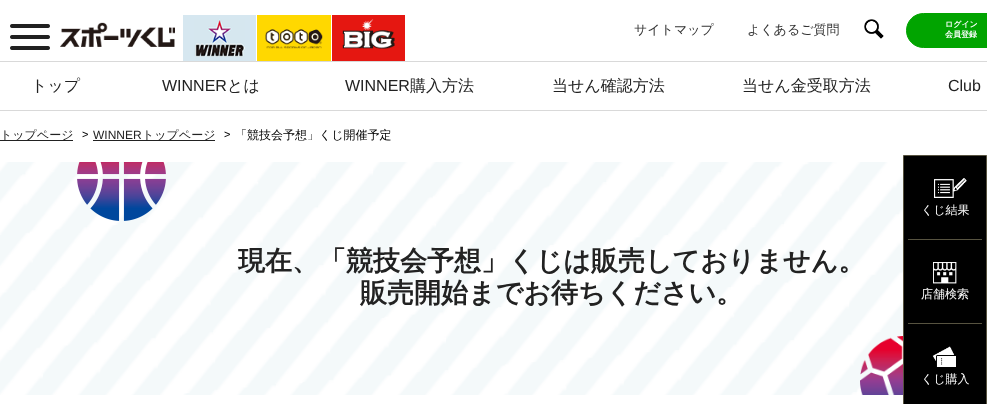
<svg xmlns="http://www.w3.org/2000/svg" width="987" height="404">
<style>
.a{font:500 13px WenQuanYi Zen Hei;fill:#333}
.b{font:bold 8px WenQuanYi Zen Hei;fill:#fff}
.c{font:500 16px WenQuanYi Zen Hei;fill:#222}
.d{font:16px Liberation Sans;fill:#222}
.e{font:500 12px WenQuanYi Zen Hei;fill:#222}
.f{font:11px Liberation Sans;fill:#000}
.g{font:12px Liberation Sans;fill:#222}
.h{font:500 12px WenQuanYi Zen Hei;fill:#000}
.i{font:bold 27px WenQuanYi Zen Hei;fill:#222}
.j{font:500 12px WenQuanYi Zen Hei;fill:#fff}
</style>
<rect width="100%" height="100%" fill="#fff"/>
<path fill="#d9d9d9" d="M0 61h987v1H0z"/>
<image href="1.png" x="10" y="24" width="40" height="26"/>
<image href="2.png" x="60" y="22" width="115" height="25"/>
<path fill="#d6e7f0" d="M183 15h73v46H183z"/>
<image href="3.png" x="194" y="19" width="51" height="38"/>
<path fill="#ffd800" d="M257 15h74v46H257z"/>
<image href="4.png" x="265" y="29" width="58" height="20"/>
<path fill="#e51711" d="M332 15h73v46H332z"/>
<image href="5.png" x="342" y="19" width="53" height="30"/>
<image href="6.png" x="864" y="19" width="20" height="20"/>
<rect fill="#01a400" stroke="#01a400" x="906.5" y="13.5" width="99" height="34" rx="17"/>
<path fill="#d9d9d9" d="M0 110h987v1H0z"/>
<path fill="#222" d="M0 140h73v1H0z"/>
<path fill="#222" d="M93 140h122v1H93z"/>
<image href="7.png" x="0" y="162" width="903" height="233"/>
<image href="8.png" x="77" y="162" width="89" height="59"/>
<image href="9.png" x="860" y="336" width="43" height="59"/>
<path fill="#000" stroke="#575340" d="M903.5 155.5h83v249H903.5z"/>
<path fill="#575340" d="M908 239h74v1H908z"/>
<image href="10.png" x="934" y="178" width="33" height="20"/>
<path fill="#575340" d="M908 323h74v1H908z"/>
<image href="11.png" x="933" y="262" width="24" height="22"/>
<image href="12.png" x="932" y="346" width="24" height="21"/>
<text class="a" x="634" y="34">サイトマップ</text>
<text class="a" x="747" y="34">よくあるご質問</text>
<text class="b" x="945" y="27">ログイン</text>
<text class="b" x="945" y="37">会員登録</text>
<text class="c" x="31" y="91">トップ</text>
<text class="d" x="162" y="91">WINNER</text>
<text class="c" x="227" y="91">とは</text>
<text class="d" x="345" y="91">WINNER</text>
<text class="c" x="410" y="91">購入方法</text>
<text class="c" x="552" y="91">当せん確認方法</text>
<text class="c" x="742" y="91">当せん金受取方法</text>
<text class="d" x="948" y="91">Club</text>
<text class="e" x="0" y="139">トップページ</text>
<text class="f" x="82" y="138">&gt;</text>
<text class="g" x="93" y="139">WINNER</text>
<text class="e" x="142" y="139">トップページ</text>
<text class="f" x="224" y="138">&gt;</text>
<text class="h" x="235" y="139">「競技会予想」くじ開催予定</text>
<text class="i" x="238" y="270">現在、「競技会予想」くじは販売しておりません。</text>
<text class="i" x="360" y="302">販売開始までお待ちください。</text>
<text class="j" x="921" y="214">くじ結果</text>
<text class="j" x="921" y="298">店舗検索</text>
<text class="j" x="921" y="383">くじ購入</text>
</svg>
